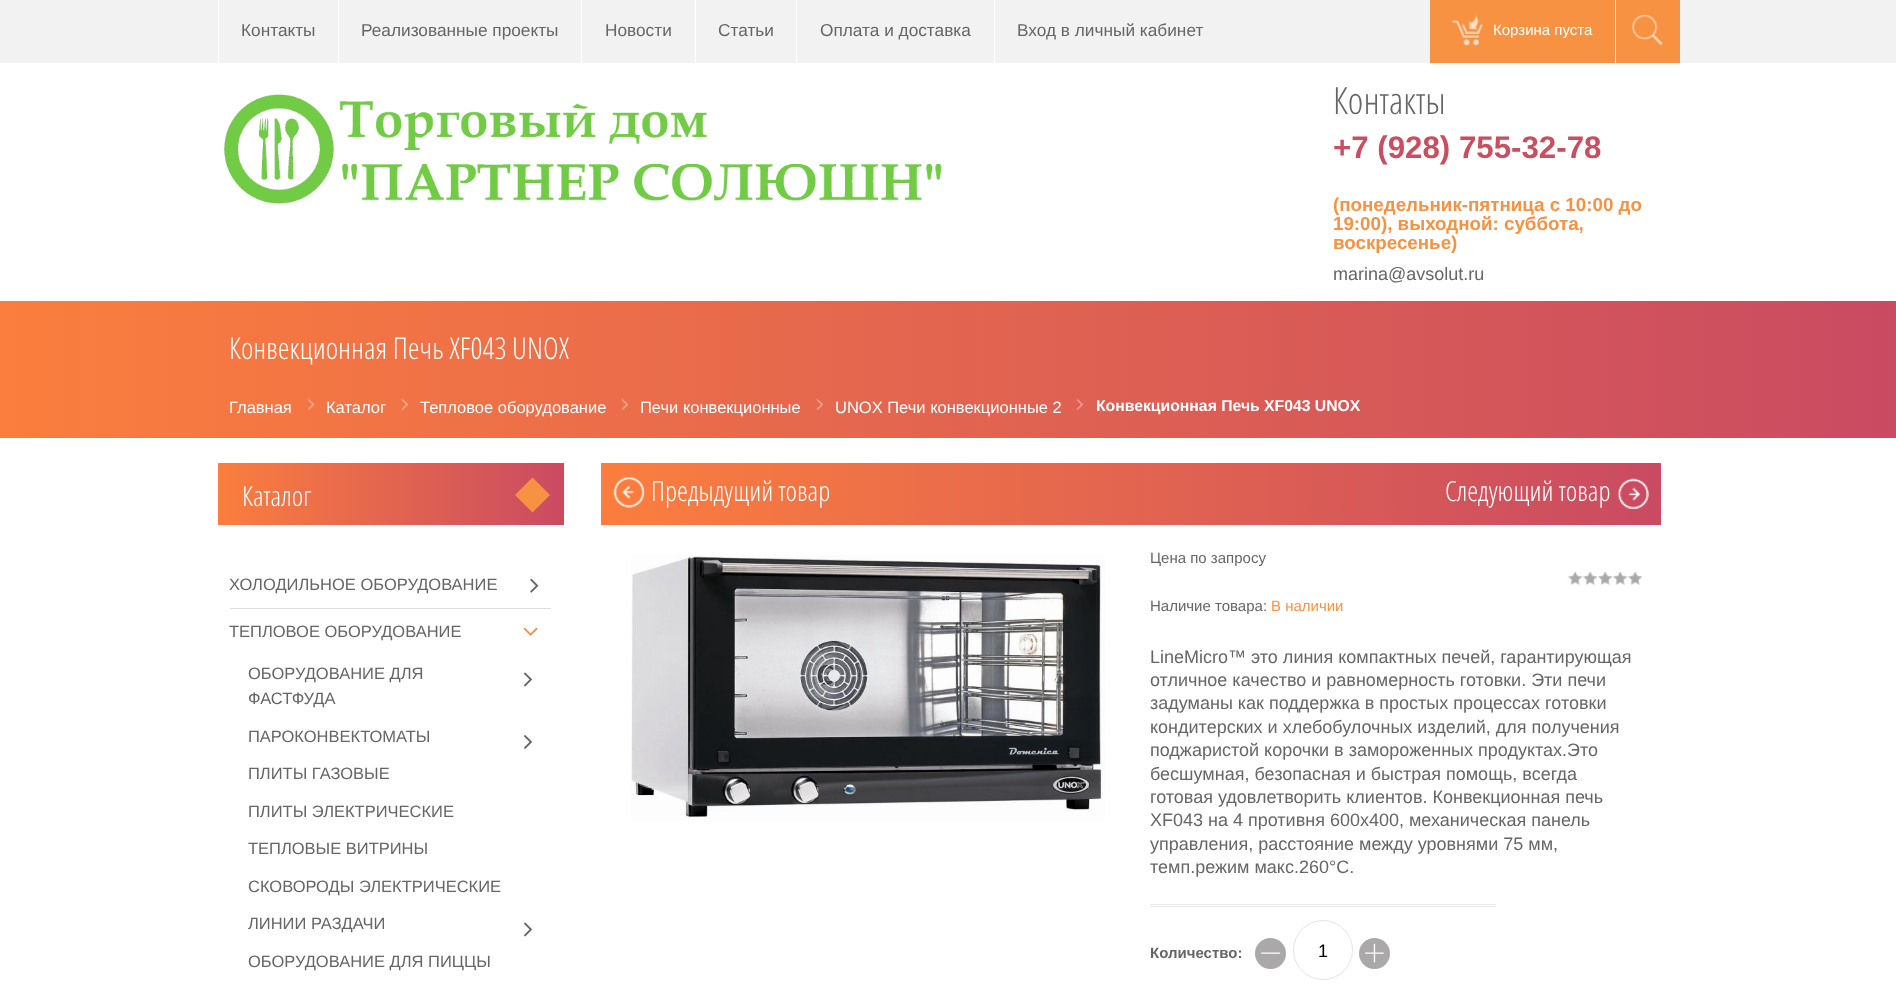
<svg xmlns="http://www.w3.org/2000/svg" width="1896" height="995">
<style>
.a{font:17.25px Liberation Sans;fill:#666}
.b{font:15px Liberation Sans;fill:#fff}
.c{font:300 37.5px Open Sans Condensed;fill:#666}
.d{font:bold 31.25px Liberation Sans;fill:#cb4d60}
.e{font:bold 18.75px Liberation Sans;fill:#f79242}
.f{font:18px Liberation Sans;fill:#666}
.g{font:300 30px Open Sans Condensed;fill:#fff}
.h{font:16.5px Liberation Sans;fill:#fff}
.i{font:bold 15.75px Liberation Sans;fill:#fff}
.j{font:300 27.75px Open Sans Condensed;fill:#fff}
.k{font:16.5px Liberation Sans;fill:#666}
.l{font:15px Liberation Sans;fill:#666}
.m{font:15px Liberation Sans;fill:#f79242}
.n{font:bold 15px Liberation Sans;fill:#666}
.o{font:18px Liberation Sans;fill:#000}
</style>
<defs>
<linearGradient id="g1" gradientUnits="userSpaceOnUse" x1="0" y1="369" x2="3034" y2="369"><stop offset="0" stop-color="#fb7e3e"/><stop offset="1" stop-color="#ac2c77"/></linearGradient>
<linearGradient id="g2" gradientUnits="userSpaceOnUse" x1="218" y1="494" x2="772" y2="494"><stop offset="0" stop-color="#fb7e3e"/><stop offset="1" stop-color="#ac2c77"/></linearGradient>
<linearGradient id="g3" gradientUnits="userSpaceOnUse" x1="601" y1="494" x2="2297" y2="494"><stop offset="0" stop-color="#fb7e3e"/><stop offset="1" stop-color="#ac2c77"/></linearGradient>
</defs>
<rect width="100%" height="100%" fill="#fff"/>
<path fill="#f2f2f2" d="M0 0h1896v63H0z"/>
<path fill="#fff" d="M218 0h1v63H218z"/>
<path fill="#fff" d="M338 0h1v63H338z"/>
<path fill="#fff" d="M581 0h1v63H581z"/>
<path fill="#fff" d="M695 0h1v63H695z"/>
<path fill="#fff" d="M796 0h1v63H796z"/>
<path fill="#fff" d="M994 0h1v63H994z"/>
<path fill="#f79242" d="M1430 0h185v63H1430z"/>
<image href="1.png" x="1452" y="15" width="31" height="31"/>
<path fill="#f79242" d="M1616 0h64v63H1616z"/>
<image href="2.png" x="1632" y="15" width="31" height="31"/>
<image href="3.png" x="224" y="94" width="718" height="110"/>
<path fill="url(#g1)" d="M0 301h1896v137H0z"/>
<image href="4.png" x="307" y="398" width="7" height="12"/>
<image href="5.png" x="401" y="398" width="7" height="12"/>
<image href="6.png" x="621" y="398" width="7" height="12"/>
<image href="7.png" x="816" y="398" width="7" height="12"/>
<image href="8.png" x="1076" y="398" width="7" height="12"/>
<path fill="url(#g2)" d="M218 463h346v62H218z"/>
<path fill="#f79242" d="M532.5 477.5l17.5 17.5l-17.5 17.5l-17.5-17.5z"/>
<path fill="#ddd" d="M230 608h321v1H230z"/>
<image href="9.png" x="530" y="578" width="9" height="15"/>
<image href="10.png" x="523" y="627" width="15" height="9"/>
<image href="11.png" x="524" y="672" width="8" height="15"/>
<image href="12.png" x="524" y="735" width="8" height="14"/>
<image href="11.png" x="524" y="922" width="8" height="15"/>
<path fill="url(#g3)" d="M601 463h1060v62H601z"/>
<image href="13.png" x="613" y="477" width="32" height="31"/>
<image href="14.png" x="1617" y="478" width="32" height="32"/>
<image href="15.png" x="631" y="555" width="474" height="266"/>
<image href="16.png" x="1567" y="571" width="76" height="14"/>
<path fill="#e9e9e9" d="M1150 904h346v1H1150z"/>
<path fill="#e9e9e9" d="M1150 906h346v1H1150z"/>
<circle fill="#aaa8a8" cx="1270.5" cy="953.5" r="15.5"/>
<image href="17.png" x="1261" y="952" width="20" height="2"/>
<circle fill="none" stroke="#e5e5e5" cx="1323" cy="950" r="29.5"/>
<circle fill="#aaa8a8" cx="1374.5" cy="953.5" r="15.5"/>
<image href="18.png" x="1365" y="943" width="19" height="20"/>
<text class="a" x="241" y="36">Контакты</text>
<text class="a" x="361" y="36">Реализованные проекты</text>
<text class="a" x="605" y="36">Новости</text>
<text class="a" x="718" y="36">Статьи</text>
<text class="a" x="820" y="36">Оплата и доставка</text>
<text class="a" x="1017" y="36">Вход в личный кабинет</text>
<text class="b" x="1493" y="35">Корзина пуста</text>
<text class="c" x="1333" y="114">Контакты</text>
<text class="d" x="1333" y="158">+7 (928) 755-32-78</text>
<text class="e" x="1333" y="211">(понедельник-пятница с 10:00 до</text>
<text class="e" x="1333" y="230">19:00), выходной: суббота,</text>
<text class="e" x="1333" y="249">воскресенье)</text>
<text class="f" x="1333" y="280">marina@avsolut.ru</text>
<text class="g" x="229" y="359">Конвекционная Печь XF043 UNOX</text>
<text class="h" x="229" y="413">Главная</text>
<text class="h" x="326" y="413">Каталог</text>
<text class="h" x="420" y="413">Тепловое оборудование</text>
<text class="h" x="640" y="413">Печи конвекционные</text>
<text class="h" x="835" y="413">UNOX Печи конвекционные 2</text>
<text class="i" x="1096" y="411">Конвекционная Печь XF043 UNOX</text>
<text class="j" x="242" y="506">Каталог</text>
<text class="k" x="229" y="590">ХОЛОДИЛЬНОЕ ОБОРУДОВАНИЕ</text>
<text class="k" x="229" y="637">ТЕПЛОВОЕ ОБОРУДОВАНИЕ</text>
<text class="k" x="248" y="679">ОБОРУДОВАНИЕ ДЛЯ</text>
<text class="k" x="248" y="704">ФАСТФУДА</text>
<text class="k" x="248" y="742">ПАРОКОНВЕКТОМАТЫ</text>
<text class="k" x="248" y="779">ПЛИТЫ ГАЗОВЫЕ</text>
<text class="k" x="248" y="817">ПЛИТЫ ЭЛЕКТРИЧЕСКИЕ</text>
<text class="k" x="248" y="854">ТЕПЛОВЫЕ ВИТРИНЫ</text>
<text class="k" x="248" y="892">СКОВОРОДЫ ЭЛЕКТРИЧЕСКИЕ</text>
<text class="k" x="248" y="929">ЛИНИИ РАЗДАЧИ</text>
<text class="k" x="248" y="967">ОБОРУДОВАНИЕ ДЛЯ ПИЦЦЫ</text>
<text class="j" x="651" y="501">Предыдущий товар</text>
<text class="j" x="1445" y="501">Cледующий товар</text>
<text class="l" x="1150" y="563">Цена по запросу</text>
<text class="l" x="1150" y="611">Наличие товара:</text>
<text class="m" x="1271" y="611">В наличии</text>
<text class="f" x="1150" y="663">LineMicro™ это линия компактных печей, гарантирующая</text>
<text class="f" x="1150" y="686">отличное качество и равномерность готовки. Эти печи</text>
<text class="f" x="1150" y="709">задуманы как поддержка в простых процессах готовки</text>
<text class="f" x="1150" y="733">кондитерских и хлебобулочных изделий, для получения</text>
<text class="f" x="1150" y="756">поджаристой корочки в замороженных продуктах.Это</text>
<text class="f" x="1150" y="780">бесшумная, безопасная и быстрая помощь, всегда</text>
<text class="f" x="1150" y="803">готовая удовлетворить клиентов. Конвекционная печь</text>
<text class="f" x="1150" y="826">XF043 на 4 противня 600х400, механическая панель</text>
<text class="f" x="1150" y="850">управления, расстояние между уровнями 75 мм,</text>
<text class="f" x="1150" y="873">темп.режим макс.260°С.</text>
<text class="n" x="1150" y="958">Количество:</text>
<text class="o" x="1318" y="957">1</text>
</svg>
